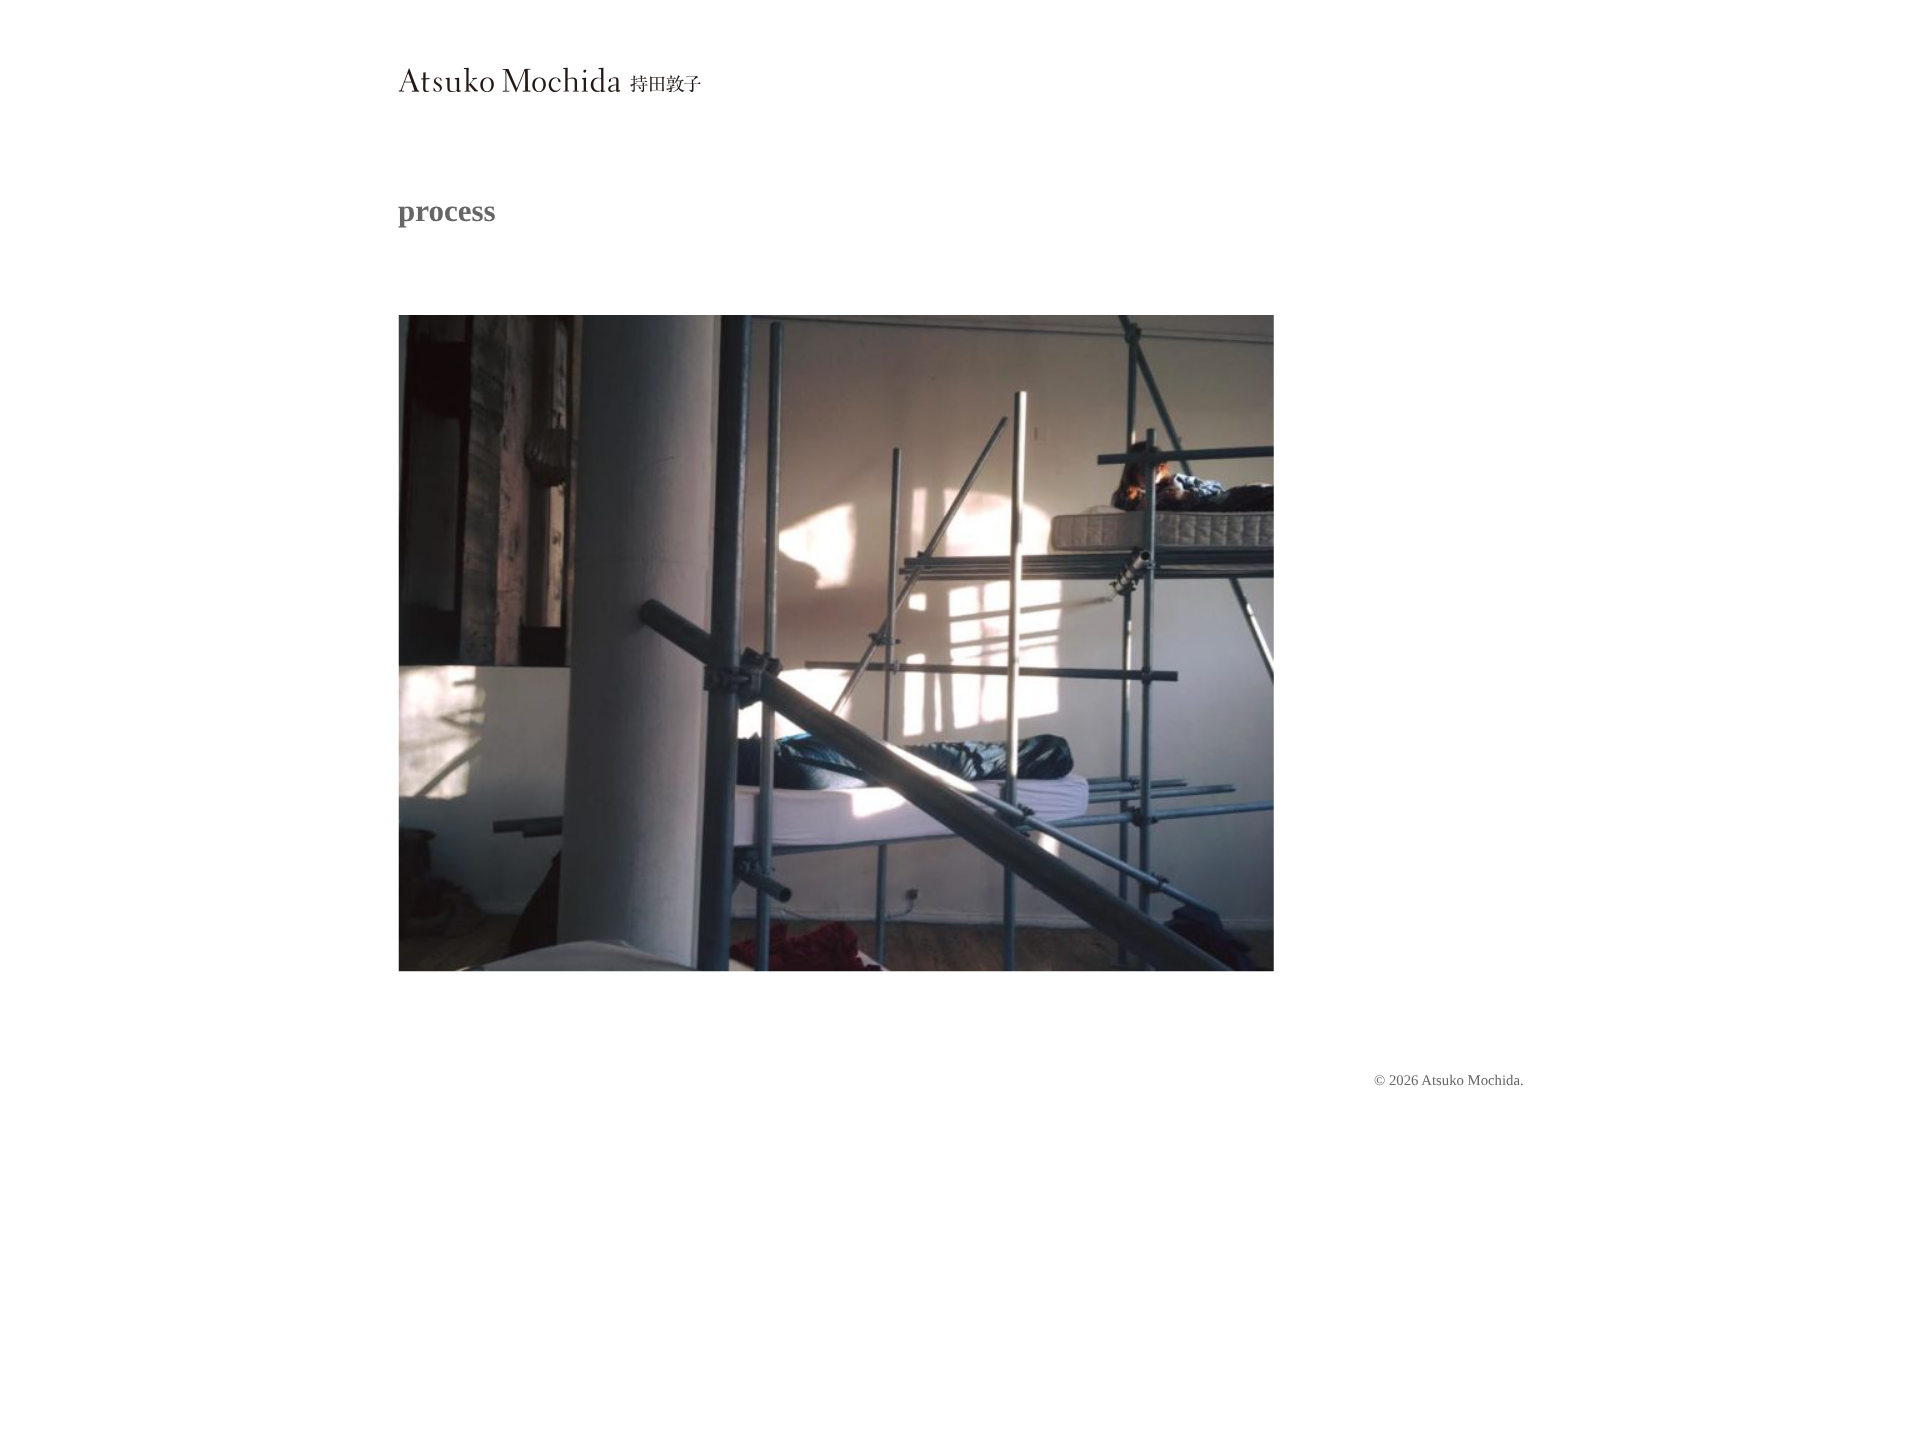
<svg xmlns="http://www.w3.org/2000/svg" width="1921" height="1440">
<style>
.a{font:bold 31px Liberation Serif;fill:#666}
.b{font:14.75px Liberation Serif;fill:#666}
</style>
<rect width="100%" height="100%" fill="#fff"/>
<image href="1.png" x="398" y="67" width="303" height="25"/>
<image href="2.png" x="398" y="315" width="876" height="657"/>
<text class="a" x="398" y="221">process</text>
<text class="b" x="1374" y="1085">© 2026 Atsuko Mochida.</text>
</svg>
